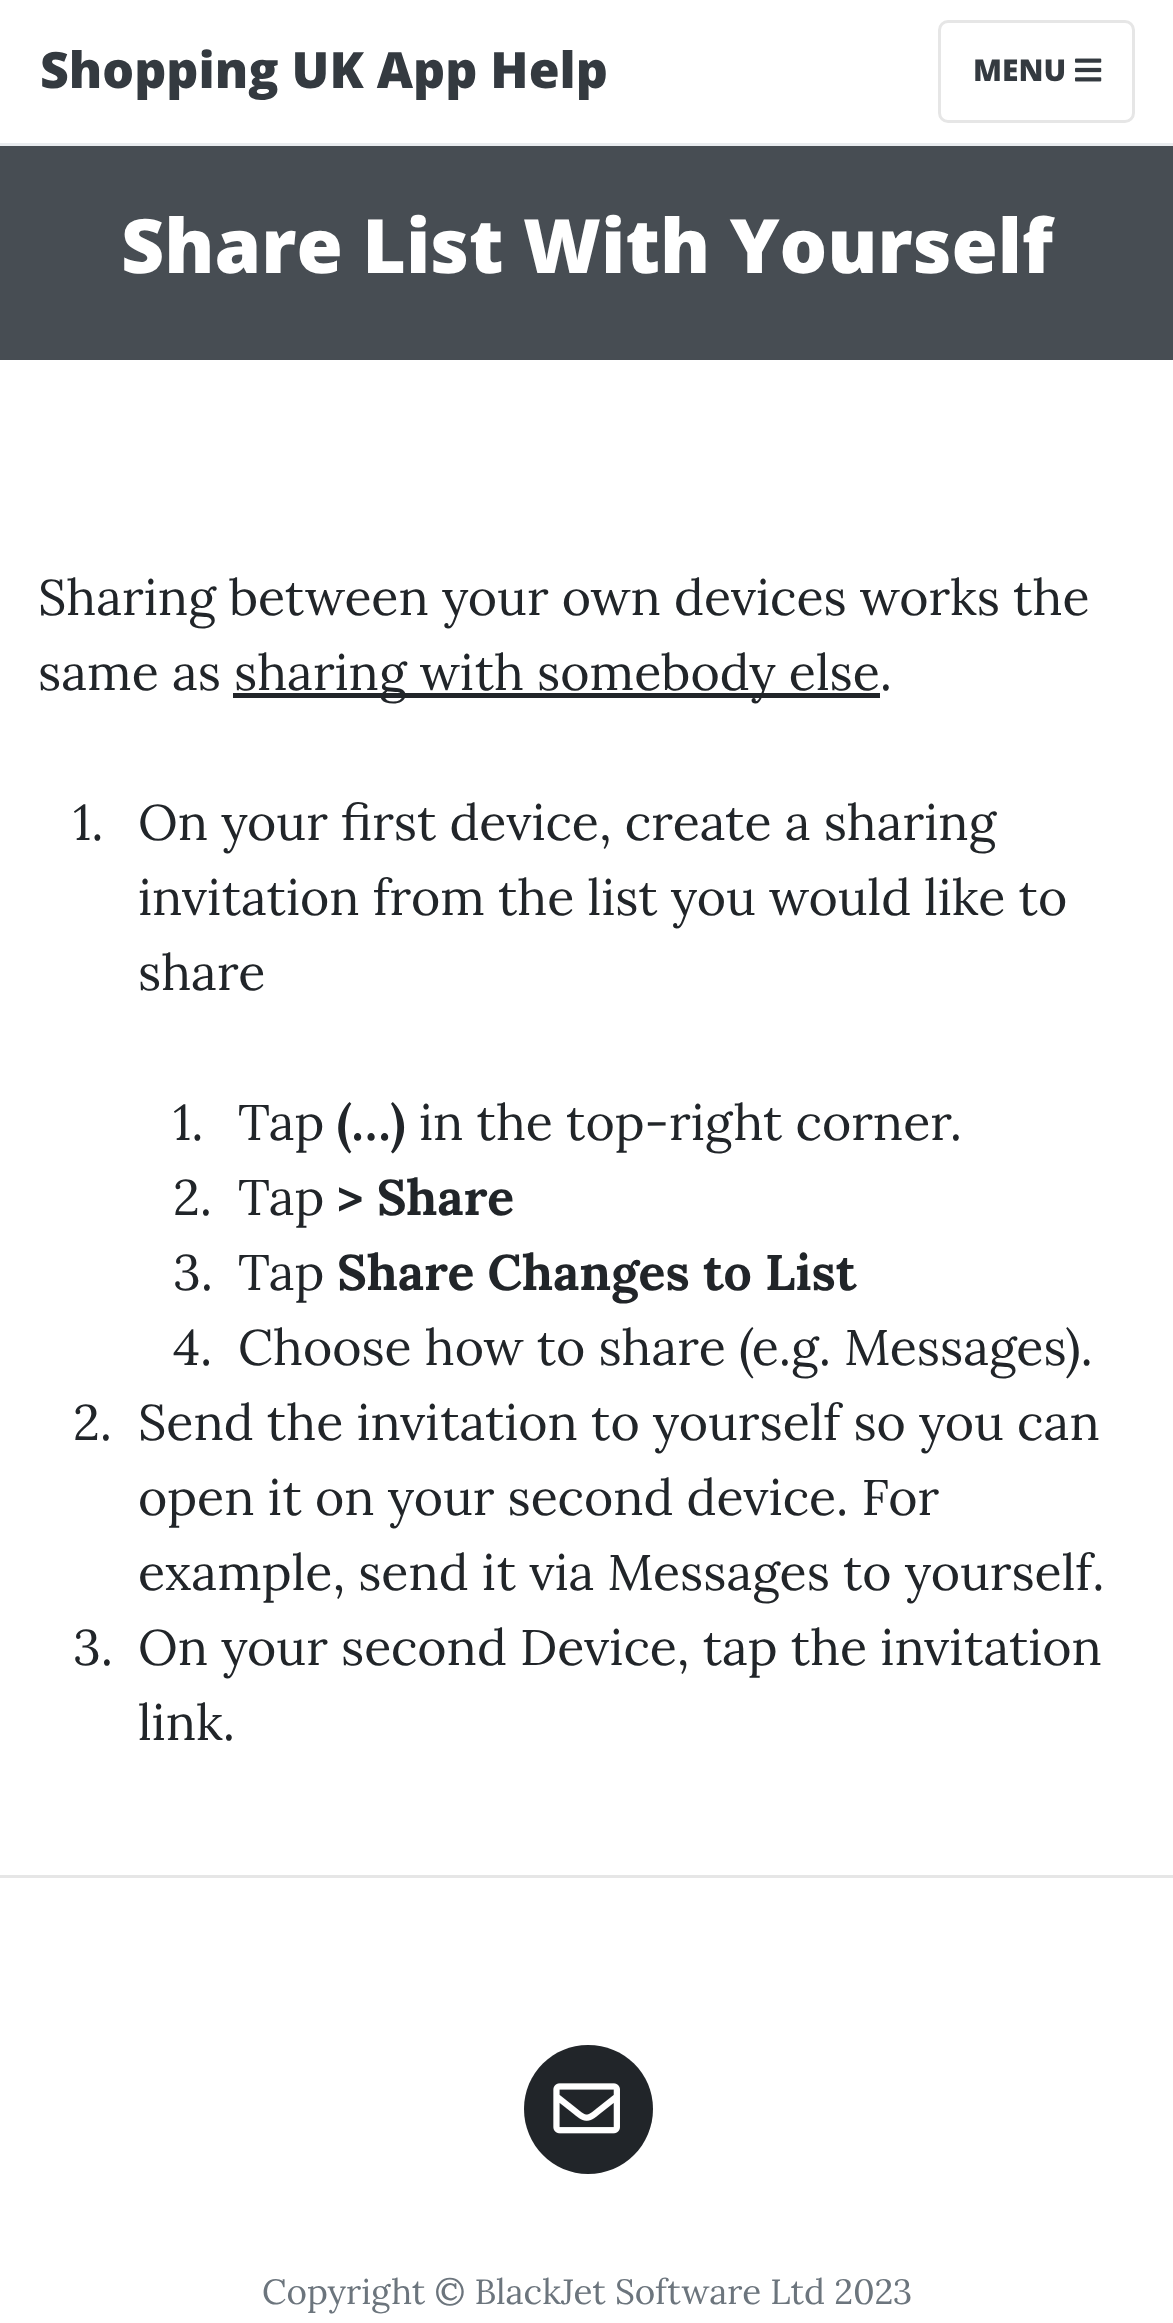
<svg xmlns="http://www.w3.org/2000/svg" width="1173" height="2323">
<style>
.a{font:800 50px Open Sans;fill:#343a40}
.b{font:800 30px Open Sans;fill:#343a40}
.c{font:800 75px Open Sans;fill:#fff}
.d{font:50px Lora;fill:#212529}
.e{font:bold 50px Lora;fill:#212529}
.f{font:35px Lora;fill:#6c757d}
</style>
<rect width="100%" height="100%" fill="#fff"/>
<path fill="#e9ecef" d="M0 143h1173v3H0z"/>
<rect fill="none" stroke="#e6e6e6" stroke-width="3" x="939.5" y="21.5" width="194" height="100" rx="8.5"/>
<image href="1.png" x="1075" y="58" width="27" height="24"/>
<path fill="#474d53" d="M0 146h1173v214H0z"/>
<path fill="#212529" d="M233 693h647v5H233z"/>
<path fill="#e6e6e6" d="M0 1875h1173v3H0z"/>
<path fill="#212529" d="M588 2045c-35 0-64 28-64 64c0 36 29 65 64 65c36 0 65-29 65-65c0-36-29-64-65-64z"/>
<image href="2.png" x="553" y="2083" width="67" height="51"/>
<text class="a" x="40" y="88">Shopping UK App Help</text>
<text class="b" x="973" y="81">MENU</text>
<text class="c" x="121" y="273">Share List With Yourself</text>
<text class="d" x="38" y="615">Sharing between your own devices works the</text>
<text class="d" x="38" y="690">same as</text>
<text class="d" x="234" y="690">sharing with somebody else.</text>
<text class="d" x="73" y="840">1.</text>
<text class="d" x="138" y="840">On your first device, create a sharing</text>
<text class="d" x="138" y="915">invitation from the list you would like to</text>
<text class="d" x="138" y="990">share</text>
<text class="d" x="173" y="1140">1.</text>
<text class="d" x="238" y="1140">Tap</text>
<text class="e" x="337" y="1140">(…)</text>
<text class="d" x="419" y="1140">in the top-right corner.</text>
<text class="d" x="173" y="1215">2.</text>
<text class="d" x="238" y="1215">Tap</text>
<text class="e" x="337" y="1215">&gt; Share</text>
<text class="d" x="173" y="1290">3.</text>
<text class="d" x="238" y="1290">Tap</text>
<text class="e" x="337" y="1290">Share Changes to List</text>
<text class="d" x="173" y="1365">4.</text>
<text class="d" x="238" y="1365">Choose how to share (e.g. Messages).</text>
<text class="d" x="73" y="1440">2.</text>
<text class="d" x="138" y="1440">Send the invitation to yourself so you can</text>
<text class="d" x="138" y="1515">open it on your second device. For</text>
<text class="d" x="138" y="1590">example, send it via Messages to yourself.</text>
<text class="d" x="73" y="1665">3.</text>
<text class="d" x="138" y="1665">On your second Device, tap the invitation</text>
<text class="d" x="138" y="1740">link.</text>
<text class="f" x="262" y="2304">Copyright © BlackJet Software Ltd 2023</text>
</svg>
